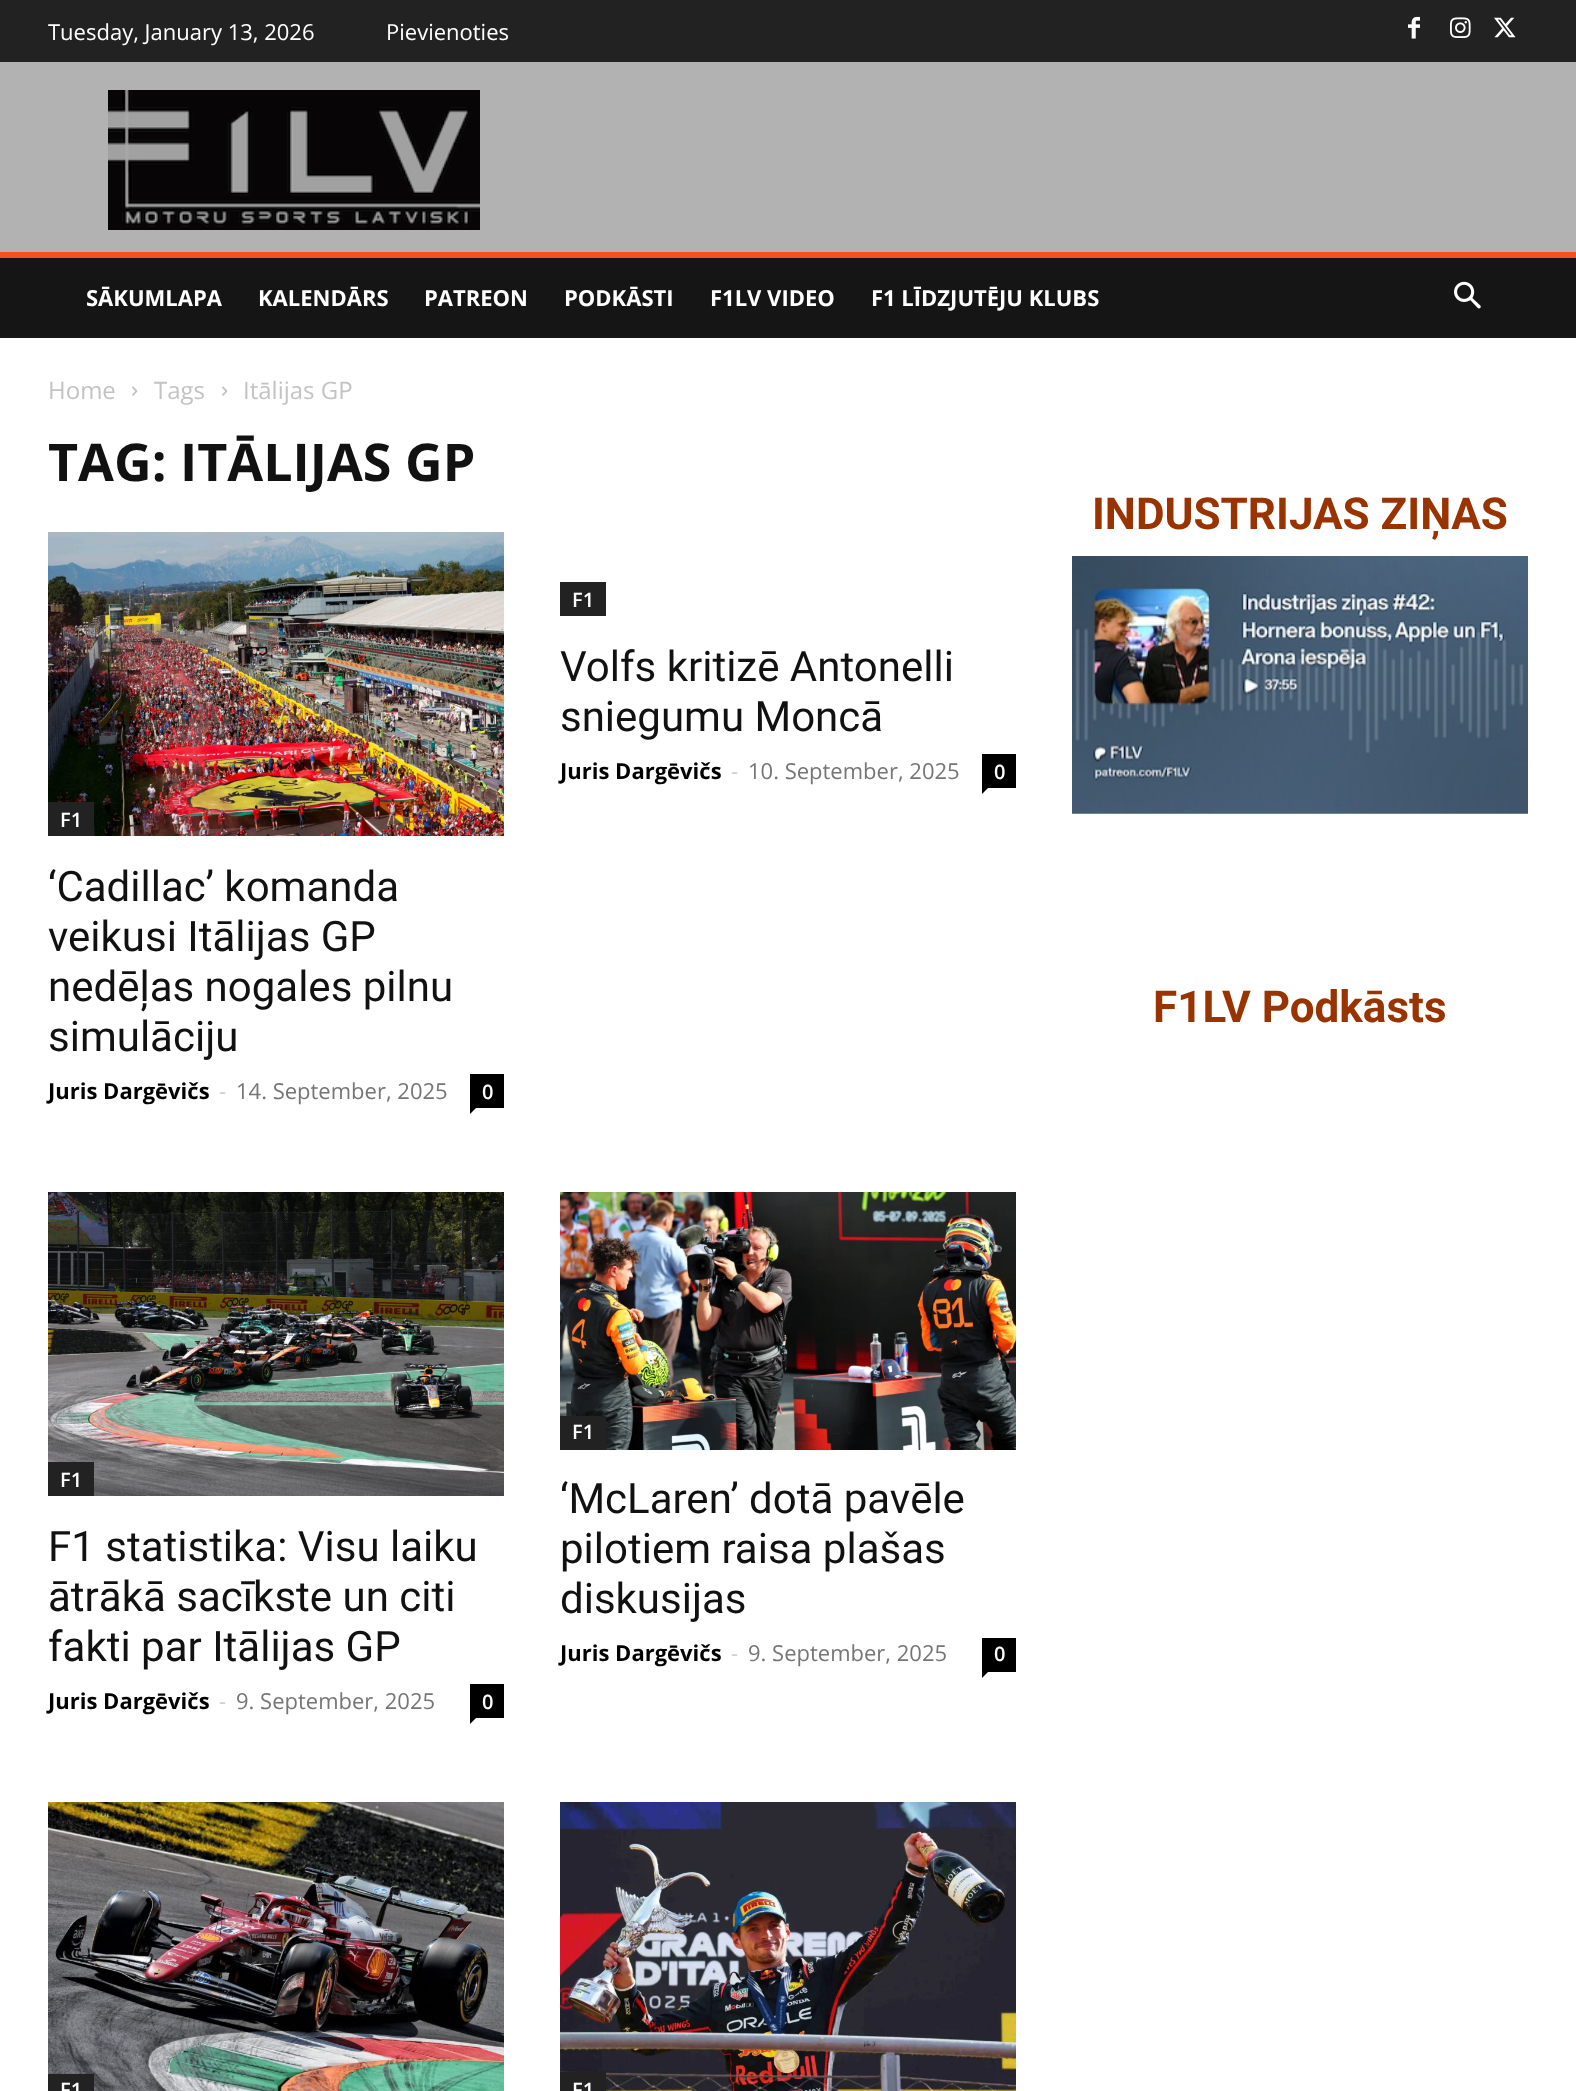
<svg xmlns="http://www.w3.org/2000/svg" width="1576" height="2091">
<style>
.a{font:22px Open Sans;fill:#fff}
.b{font:bold 22px Open Sans;fill:#fff}
.c{font:24px Open Sans;fill:#c3c3c3}
.d{font:bold 52px Open Sans;fill:#111}
.e{font:600 20px Open Sans;fill:#fff}
.f{font:42px Roboto;fill:#111}
.g{font:bold 22px Open Sans;fill:#000}
.h{font:22px Open Sans;fill:#ccc}
.i{font:22px Open Sans;fill:#767676}
.j{font:bold 44px Roboto;fill:#930}
</style>
<rect width="100%" height="100%" fill="#fff"/>
<path fill="#222" d="M0 0h1576v62H0z"/>
<image href="1.png" x="1408" y="16" width="12" height="23"/>
<image href="2.png" x="1450" y="17" width="21" height="21"/>
<image href="3.png" x="1494" y="17" width="22" height="21"/>
<path fill="#b2b2b2" d="M0 62h1576v190H0z"/>
<path fill="#f4511e" d="M0 252h1576v6H0z"/>
<image href="4.png" x="108" y="90" width="372" height="140"/>
<path fill="#151515" d="M0 258h1576v80H0z"/>
<image href="5.png" x="1454" y="281" width="27" height="28"/>
<image href="6.png" x="132" y="386" width="6" height="10"/>
<image href="6.png" x="222" y="386" width="6" height="10"/>
<path fill="#222" d="M560 582h46v34H560z"/>
<path fill="#000" d="M982 754h34v34H982z"/>
<path fill="#000" d="M982 788h6l-6 6z"/>
<image href="7.png" x="48" y="532" width="456" height="304"/>
<path fill="#222" d="M48 802h46v34H48z"/>
<path fill="#000" d="M470 1074h34v34H470z"/>
<path fill="#000" d="M470 1108h6l-6 6z"/>
<image href="8.png" x="48" y="1192" width="456" height="304"/>
<path fill="#222" d="M48 1462h46v34H48z"/>
<path fill="#000" d="M470 1684h34v34H470z"/>
<path fill="#000" d="M470 1718h6l-6 6z"/>
<image href="9.png" x="560" y="1192" width="456" height="258"/>
<path fill="#222" d="M560 1416h46v34H560z"/>
<path fill="#000" d="M982 1638h34v34H982z"/>
<path fill="#000" d="M982 1672h6l-6 6z"/>
<image href="10.png" x="48" y="1802" width="456" height="289"/>
<path fill="#222" d="M48 2074h46v17H48z"/>
<image href="11.png" x="560" y="1802" width="456" height="289"/>
<path fill="#222" d="M560 2072h46v19H560z"/>
<image href="12.png" x="1072" y="556" width="456" height="258"/>
<text class="a" x="48" y="40">Tuesday, January 13, 2026</text>
<text class="a" x="386" y="40">Pievienoties</text>
<text class="b" x="86" y="306">SĀKUMLAPA</text>
<text class="b" x="258" y="306">KALENDĀRS</text>
<text class="b" x="424" y="306">PATREON</text>
<text class="b" x="564" y="306">PODKĀSTI</text>
<text class="b" x="710" y="306">F1LV VIDEO</text>
<text class="b" x="871" y="306">F1 LĪDZJUTĒJU KLUBS</text>
<text class="c" x="48" y="399">Home</text>
<text class="c" x="154" y="399">Tags</text>
<text class="c" x="243" y="399">Itālijas GP</text>
<text class="d" x="48" y="481">TAG: ITĀLIJAS GP</text>
<text class="e" x="572" y="607">F1</text>
<text class="f" x="560" y="681">Volfs kritizē Antonelli</text>
<text class="f" x="560" y="731">sniegumu Moncā</text>
<text class="g" x="560" y="779">Juris Dargēvičs</text>
<text class="h" x="731" y="779">-</text>
<text class="i" x="748" y="779">10. September, 2025</text>
<text class="e" x="994" y="779">0</text>
<text class="e" x="60" y="827">F1</text>
<text class="f" x="48" y="901">‘Cadillac’ komanda</text>
<text class="f" x="48" y="951">veikusi Itālijas GP</text>
<text class="f" x="48" y="1001">nedēļas nogales pilnu</text>
<text class="f" x="48" y="1051">simulāciju</text>
<text class="g" x="48" y="1099">Juris Dargēvičs</text>
<text class="h" x="219" y="1099">-</text>
<text class="i" x="236" y="1099">14. September, 2025</text>
<text class="e" x="482" y="1099">0</text>
<text class="e" x="60" y="1487">F1</text>
<text class="f" x="48" y="1561">F1 statistika: Visu laiku</text>
<text class="f" x="48" y="1611">ātrākā sacīkste un citi</text>
<text class="f" x="48" y="1661">fakti par Itālijas GP</text>
<text class="g" x="48" y="1709">Juris Dargēvičs</text>
<text class="h" x="219" y="1709">-</text>
<text class="i" x="236" y="1709">9. September, 2025</text>
<text class="e" x="482" y="1709">0</text>
<text class="e" x="572" y="1439">F1</text>
<text class="f" x="560" y="1513">‘McLaren’ dotā pavēle</text>
<text class="f" x="560" y="1563">pilotiem raisa plašas</text>
<text class="f" x="560" y="1613">diskusijas</text>
<text class="g" x="560" y="1661">Juris Dargēvičs</text>
<text class="h" x="731" y="1661">-</text>
<text class="i" x="748" y="1661">9. September, 2025</text>
<text class="e" x="994" y="1661">0</text>
<text class="e" x="60" y="2097">F1</text>
<text class="e" x="572" y="2097">F1</text>
<text class="j" x="1092" y="529">INDUSTRIJAS ZIŅAS</text>
<text class="j" x="1153" y="1022">F1LV Podkāsts</text>
</svg>
